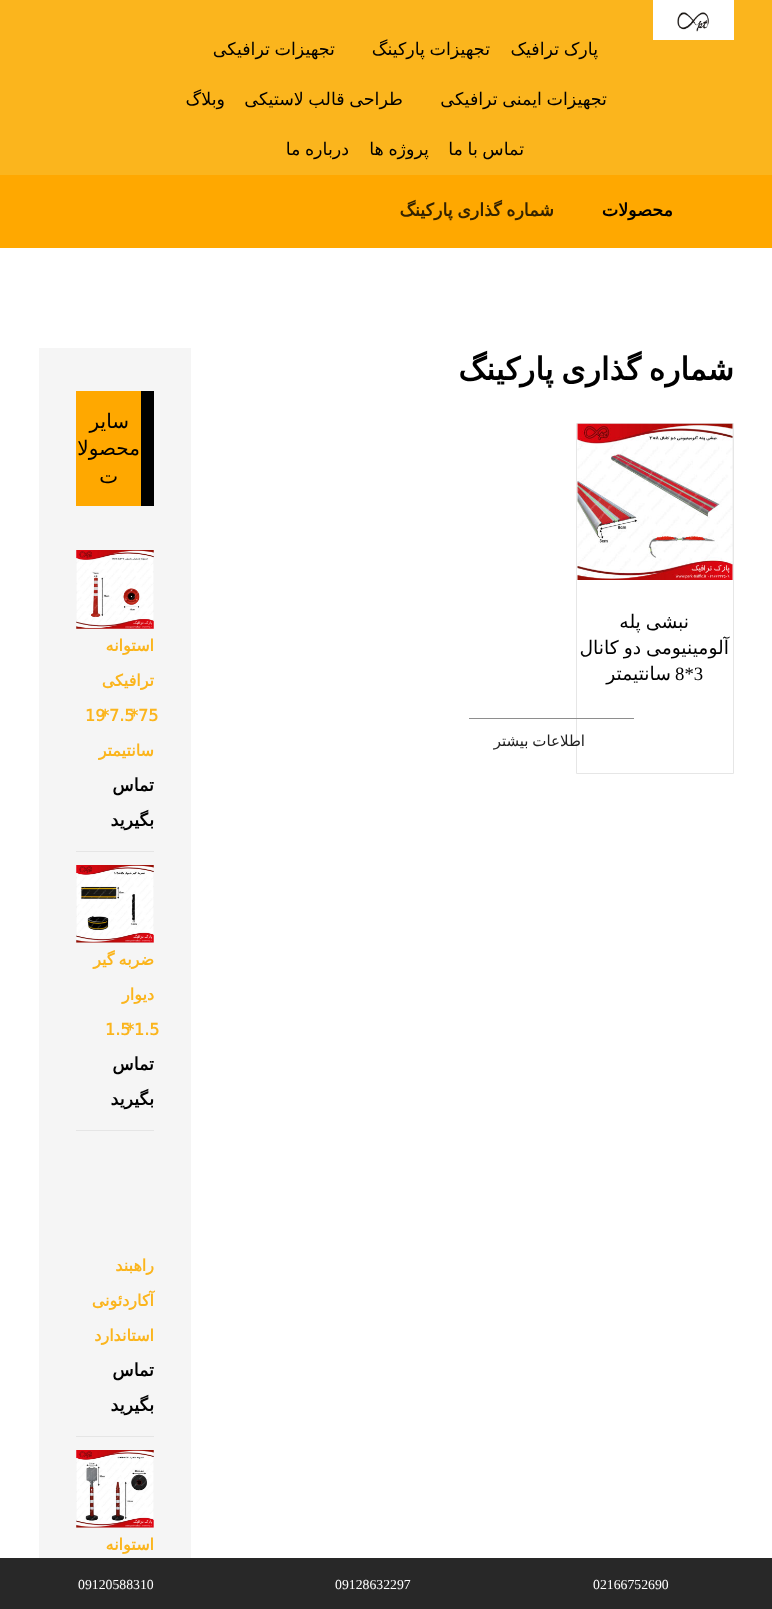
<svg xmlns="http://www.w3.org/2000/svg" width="772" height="1609">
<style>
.a{font:17.5px DejaVu Sans;direction:rtl;fill:#000}
.b{font:bold 17.5px DejaVu Sans;direction:rtl;fill:#000}
.c{font:bold 17.5px DejaVu Sans;direction:rtl;fill:#320}
.d{font:bold 31.25px DejaVu Sans;direction:rtl;fill:#000}
.e{font:18.75px DejaVu Sans;direction:rtl;fill:#000}
.f{font:18.75px Liberation Serif;fill:#000}
.g{font:15px DejaVu Sans;direction:rtl;fill:#212121}
.h{font:20px DejaVu Sans;direction:rtl;fill:#000}
.i{font:bold 16px DejaVu Sans;direction:rtl;fill:#fbb51d}
.j{font:bold 16px DejaVu Sans;fill:#fbb51d}
.k{font:13.75px Liberation Serif;fill:#fff}
</style>
<rect width="100%" height="100%" fill="#fff"/>
<path fill="#fbb51d" d="M0 0h772v175H0z"/>
<path fill="#fff" d="M653 0h81v40H653z"/>
<image href="1.png" x="677" y="12" width="32" height="20"/>
<path fill="#ffa800" d="M0 175h772v73H0z"/>
<path fill="none" stroke="#e6e6e6" d="M576.5 423.5h157v350H576.5z"/>
<path fill="#ededed" d="M732 424h1v156H732z"/>
<image href="2.png" x="577" y="423" width="156" height="157"/>
<path fill="#8e8e8e" d="M469 718h165v1H469z"/>
<path fill="#f5f5f5" d="M39 348h152v1210H39z"/>
<path fill="#ffa800" d="M76 391h65v115H76z"/>
<path fill="#000" d="M141 391h13v115H141z"/>
<path fill="#e5e5e5" d="M76 851h78v1H76z"/>
<path fill="#e5e5e5" d="M76 550h78v79H76z"/>
<image href="3.png" x="76" y="550" width="78" height="79"/>
<path fill="#e5e5e5" d="M76 1130h78v1H76z"/>
<path fill="#e5e5e5" d="M76 865h78v78H76z"/>
<image href="4.png" x="76" y="865" width="78" height="78"/>
<path fill="#e5e5e5" d="M76 1436h78v1H76z"/>
<path fill="#e5e5e5" d="M76 1450h78v78H76z"/>
<image href="5.png" x="76" y="1450" width="78" height="78"/>
<path fill="#282828" d="M0 1558h772v51H0z"/>
<text class="a" x="598" y="55" word-spacing="-1">پارک ترافیک</text>
<text class="a" x="490" y="55" word-spacing="-1">تجهیزات پارکینگ</text>
<text class="a" x="335" y="55" word-spacing="-1">تجهیزات ترافیکی</text>
<text class="a" x="607" y="105" word-spacing="-1">تجهیزات ایمنی ترافیکی</text>
<text class="a" x="403" y="105" word-spacing="-1">طراحی قالب لاستیکی</text>
<text class="a" x="225" y="105">وبلاگ</text>
<text class="a" x="524" y="155" word-spacing="-1">تماس با ما</text>
<text class="a" x="429" y="155" word-spacing="-1">پروژه ها</text>
<text class="a" x="349" y="155" word-spacing="-1">درباره ما</text>
<text class="b" x="673" y="216">محصولات</text>
<text class="c" x="554" y="216" word-spacing="-1">شماره گذاری پارکینگ</text>
<text class="d" x="734" y="380" word-spacing="-2">شماره گذاری پارکینگ</text>
<text class="e" x="689" y="628" word-spacing="-1">نبشی پله</text>
<text class="e" x="729" y="654" word-spacing="-1">آلومینیومی دو کانال</text>
<text class="f" x="675" y="680">8*3</text>
<text class="e" x="671" y="680">سانتیمتر</text>
<text class="g" x="585" y="746" word-spacing="-1">اطلاعات بیشتر</text>
<text class="h" x="129" y="428">سایر</text>
<text class="h" x="140" y="455">محصولا</text>
<text class="h" x="118" y="483">ت</text>
<text class="i" x="154" y="651">استوانه</text>
<text class="i" x="154" y="686">ترافیکی</text>
<text class="j" x="85" y="721">19</text>
<text class="j" x="101" y="721">*7.5</text>
<text class="j" x="130" y="721">*75</text>
<text class="i" x="154" y="756">سانتیمتر</text>
<text class="b" x="154" y="791">تماس</text>
<text class="b" x="154" y="826">بگیرید</text>
<text class="i" x="154" y="965" word-spacing="-1">ضربه گیر</text>
<text class="i" x="154" y="1000">دیوار</text>
<text class="j" x="105" y="1035">1.5</text>
<text class="j" x="126" y="1035">*1.5</text>
<text class="b" x="154" y="1070">تماس</text>
<text class="b" x="154" y="1105">بگیرید</text>
<text class="i" x="154" y="1271">راهبند</text>
<text class="i" x="154" y="1306">آکاردئونی</text>
<text class="i" x="154" y="1341">استاندارد</text>
<text class="b" x="154" y="1376">تماس</text>
<text class="b" x="154" y="1411">بگیرید</text>
<text class="i" x="154" y="1550">استوانه</text>
<text class="k" x="593" y="1589">02166752690</text>
<text class="k" x="335" y="1589">09128632297</text>
<text class="k" x="78" y="1589">09120588310</text>
</svg>
